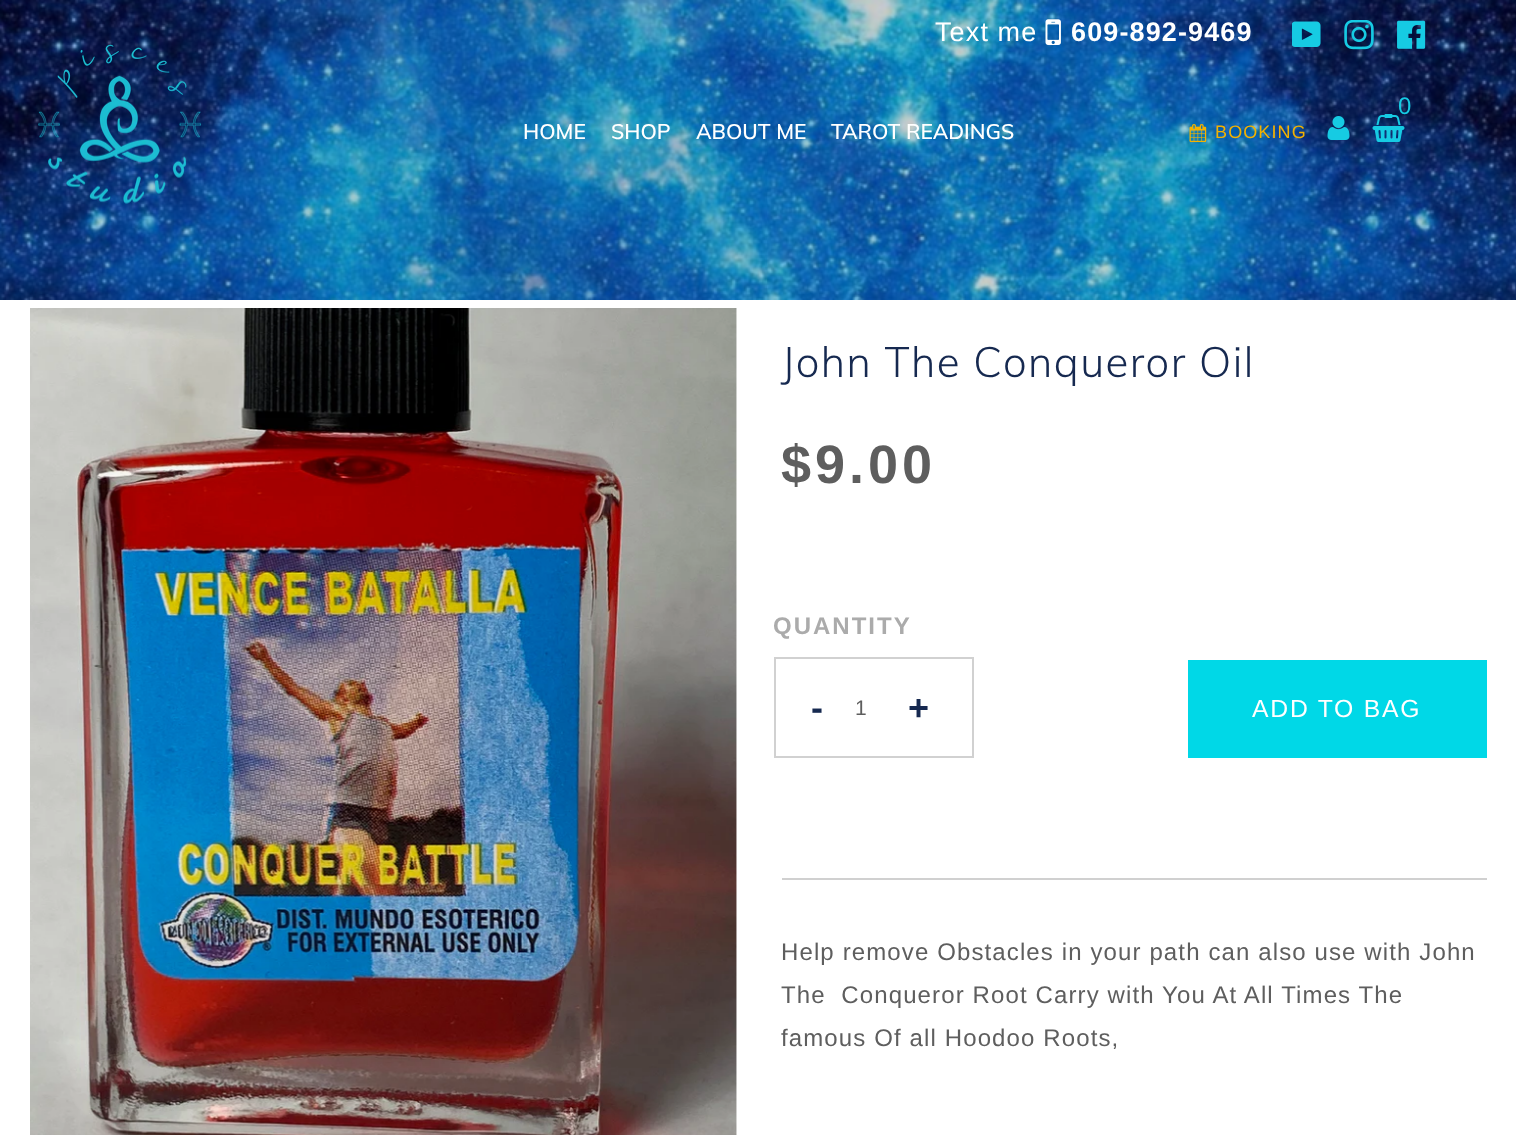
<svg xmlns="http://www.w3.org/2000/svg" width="1516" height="1135">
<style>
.a{font:27px Liberation Sans;letter-spacing:1.12px;fill:#fff}
.b{font:bold 27px Liberation Sans;letter-spacing:1.12px;fill:#fff}
.c{font:24px Liberation Sans;fill:#16cbe3}
.d{font:600 21px Muli;fill:#fff}
.e{font:18px Liberation Sans;letter-spacing:1.12px;fill:#f4b200}
.f{font:300 42px Muli;letter-spacing:1.5px;fill:#162950}
.g{font:bold 54px Liberation Sans;letter-spacing:4px;fill:#5e5e5e}
.h{font:bold 24px Liberation Sans;letter-spacing:2px;fill:#ababab}
.i{font:bold 36px Liberation Sans;letter-spacing:3px;fill:#162950}
.j{font:21px Liberation Sans;letter-spacing:1.75px;fill:#5e5e5e}
.k{font:24.75px Liberation Sans;letter-spacing:1.75px;fill:#fff}
.l{font:24px Liberation Sans;letter-spacing:1.12px;fill:#5e5e5e}
</style>
<rect width="100%" height="100%" fill="#fff"/>
<image href="9.png" x="0" y="0" width="1516" height="300"/>
<image href="1.png" x="1045" y="19" width="16" height="26"/>
<image href="2.png" x="1292" y="21" width="29" height="26"/>
<image href="3.png" x="1344" y="20" width="30" height="30"/>
<image href="4.png" x="1397" y="20" width="29" height="29"/>
<image href="5.png" x="38" y="44" width="164" height="160"/>
<image href="6.png" x="1372" y="114" width="33" height="28"/>
<image href="7.png" x="1327" y="116" width="23" height="24"/>
<image href="8.png" x="1189" y="124" width="18" height="19"/>
<image href="10.png" x="30" y="308" width="707" height="827"/>
<path fill="none" stroke="#d1d1d1" stroke-width="2" d="M775 658h198v99H775z"/>
<path fill="#00d8e7" d="M1188 660h299v98H1188z"/>
<path fill="#d0d0d0" d="M782 878h705v2H782z"/>
<text class="a" x="935" y="41">Text me</text>
<text class="b" x="1071" y="41">609-892-9469</text>
<text class="c" x="1398" y="114">0</text>
<text class="d" x="523" y="139">HOME</text>
<text class="d" x="611" y="139">SHOP</text>
<text class="d" x="696" y="139">ABOUT ME</text>
<text class="d" x="831" y="139">TAROT READINGS</text>
<text class="e" x="1215" y="138">BOOKING</text>
<text class="f" x="781" y="377">John The Conqueror Oil</text>
<text class="g" x="781" y="483">$9.00</text>
<text class="h" x="773" y="634">QUANTITY</text>
<text class="i" x="811" y="720">-</text>
<text class="j" x="855" y="715">1</text>
<text class="i" x="908" y="720">+</text>
<text class="k" x="1252" y="717">ADD TO BAG</text>
<text class="l" x="781" y="960">Help remove Obstacles in your path can also use with John</text>
<text class="l" xml:space="preserve" x="781" y="1003">The  Conqueror Root Carry with You At All Times The</text>
<text class="l" x="781" y="1046">famous Of all Hoodoo Roots,</text>
</svg>
